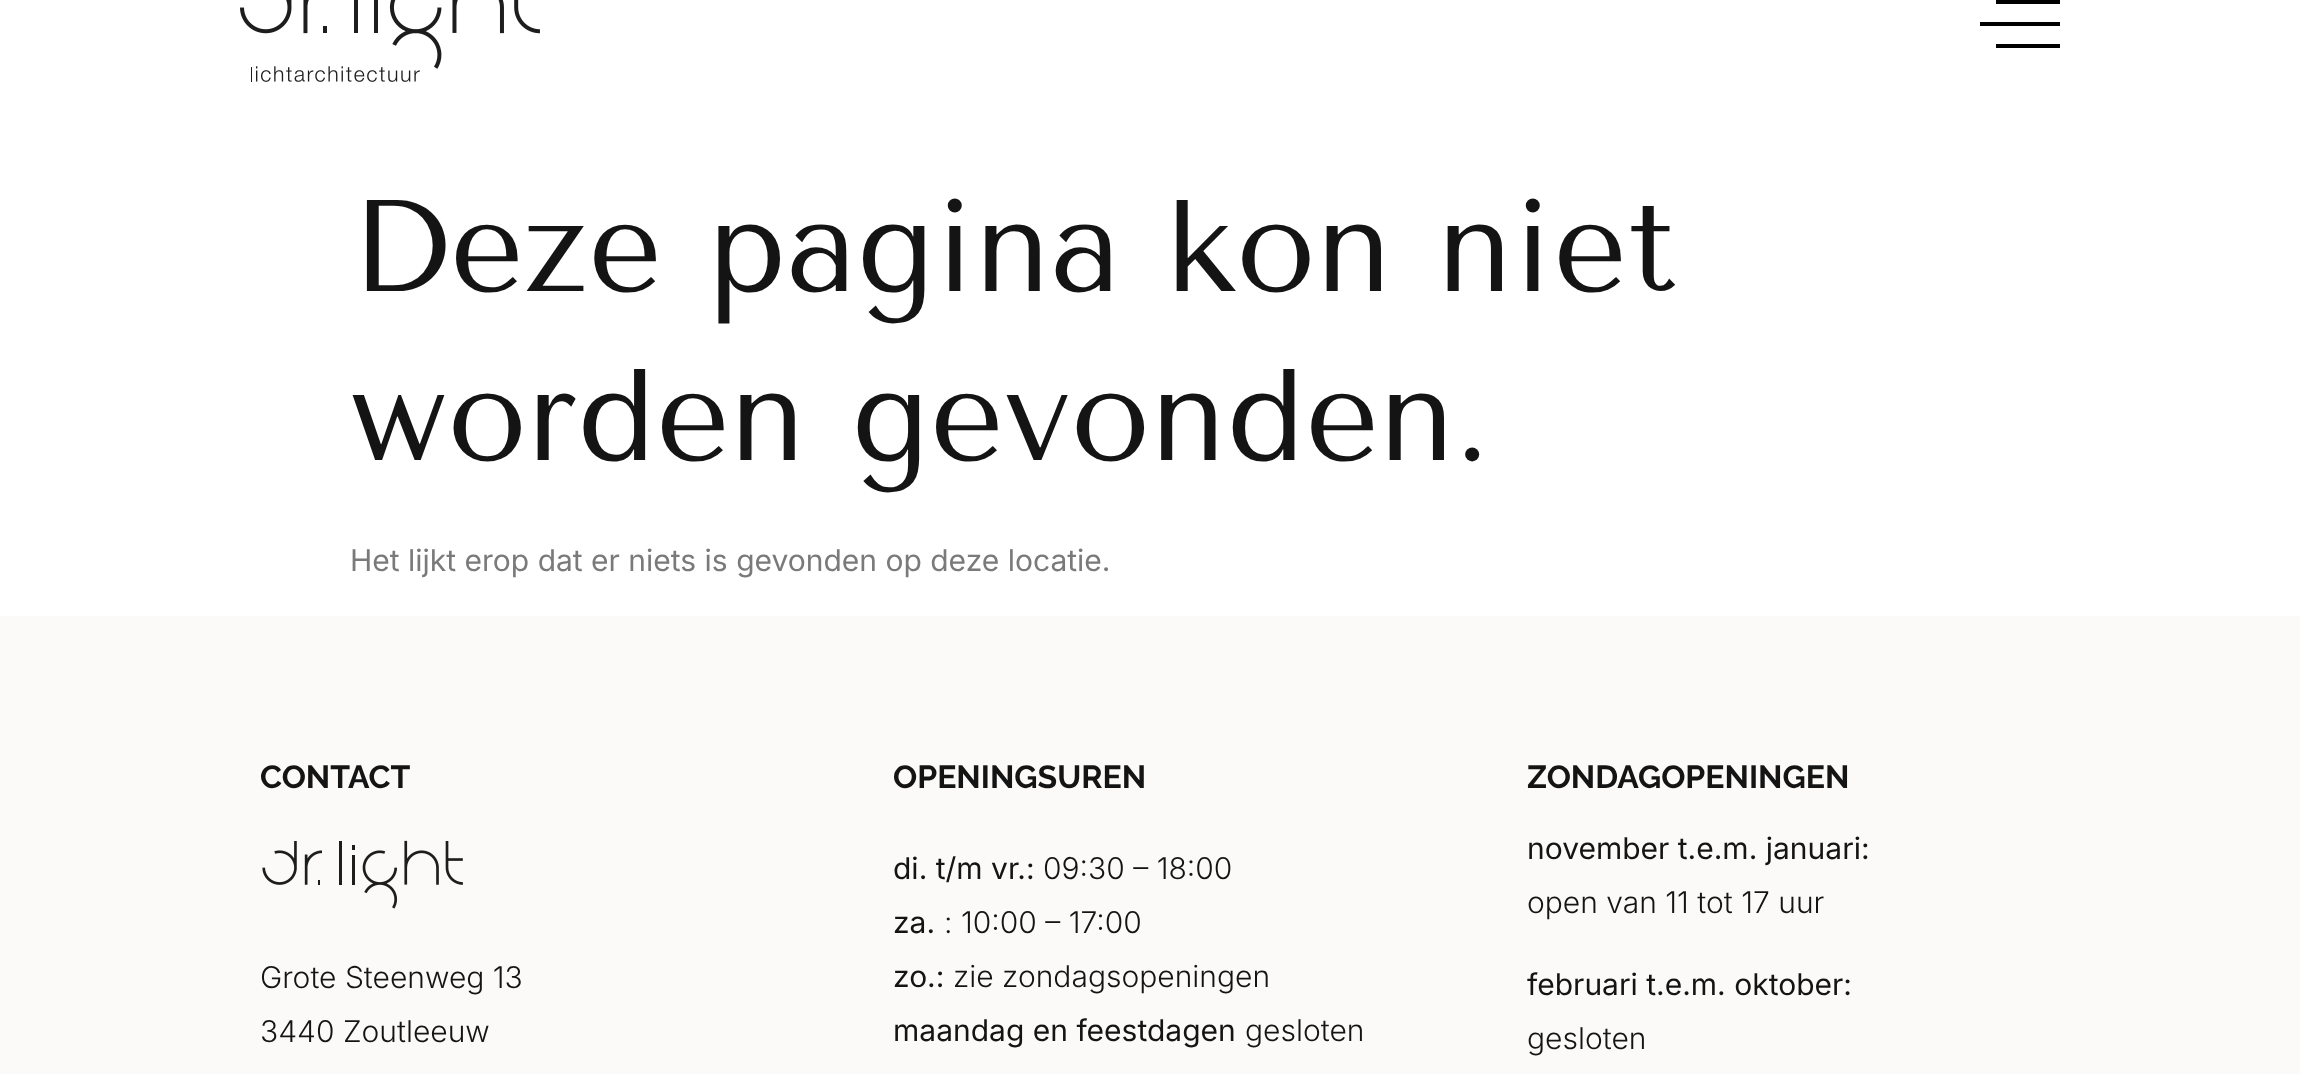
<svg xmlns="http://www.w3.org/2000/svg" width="2300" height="1074">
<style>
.a{font:130px Tenor Sans;fill:#141414}
.b{font:30px Inter;fill:#7a7a7a}
.c{font:bold 32px Raleway;fill:#141414}
.d{font:300 30px Inter;fill:#141414}
.e{font:30px Inter;fill:#141414}
</style>
<rect width="100%" height="100%" fill="#fff"/>
<image href="1.png" x="240" y="0" width="300" height="82"/>
<path fill="#000" d="M1996 0h64v4H1996z"/>
<path fill="#000" d="M1980 22h80v4H1980z"/>
<path fill="#000" d="M1996 44h64v4H1996z"/>
<path fill="#fbfaf9" d="M0 616h2300v458H0z"/>
<image href="2.png" x="262" y="840" width="201" height="69"/>
<text class="a" x="350" y="291">Deze pagina kon niet</text>
<text class="a" x="350" y="460">worden gevonden.</text>
<text class="b" x="350" y="571">Het lijkt erop dat er niets is gevonden op deze locatie.</text>
<text class="c" x="260" y="788">CONTACT</text>
<text class="d" x="260" y="988">Grote Steenweg 13</text>
<text class="d" x="260" y="1042">3440 Zoutleeuw</text>
<text class="c" x="893" y="788">OPENINGSUREN</text>
<text class="e" x="893" y="879">di. t/m vr.:</text>
<text class="d" x="1043" y="879">09:30 – 18:00</text>
<text class="e" x="893" y="933">za.</text>
<text class="d" x="944" y="933">: 10:00 – 17:00</text>
<text class="e" x="893" y="987">zo.:</text>
<text class="d" x="953" y="987">zie zondagsopeningen</text>
<text class="e" x="893" y="1041">maandag en feestdagen</text>
<text class="d" x="1245" y="1041">gesloten</text>
<text class="c" x="1527" y="788">ZONDAGOPENINGEN</text>
<text class="e" x="1527" y="859">november t.e.m. januari:</text>
<text class="d" x="1527" y="913">open van 11 tot 17 uur</text>
<text class="e" x="1527" y="995">februari t.e.m. oktober:</text>
<text class="d" x="1527" y="1049">gesloten</text>
</svg>
